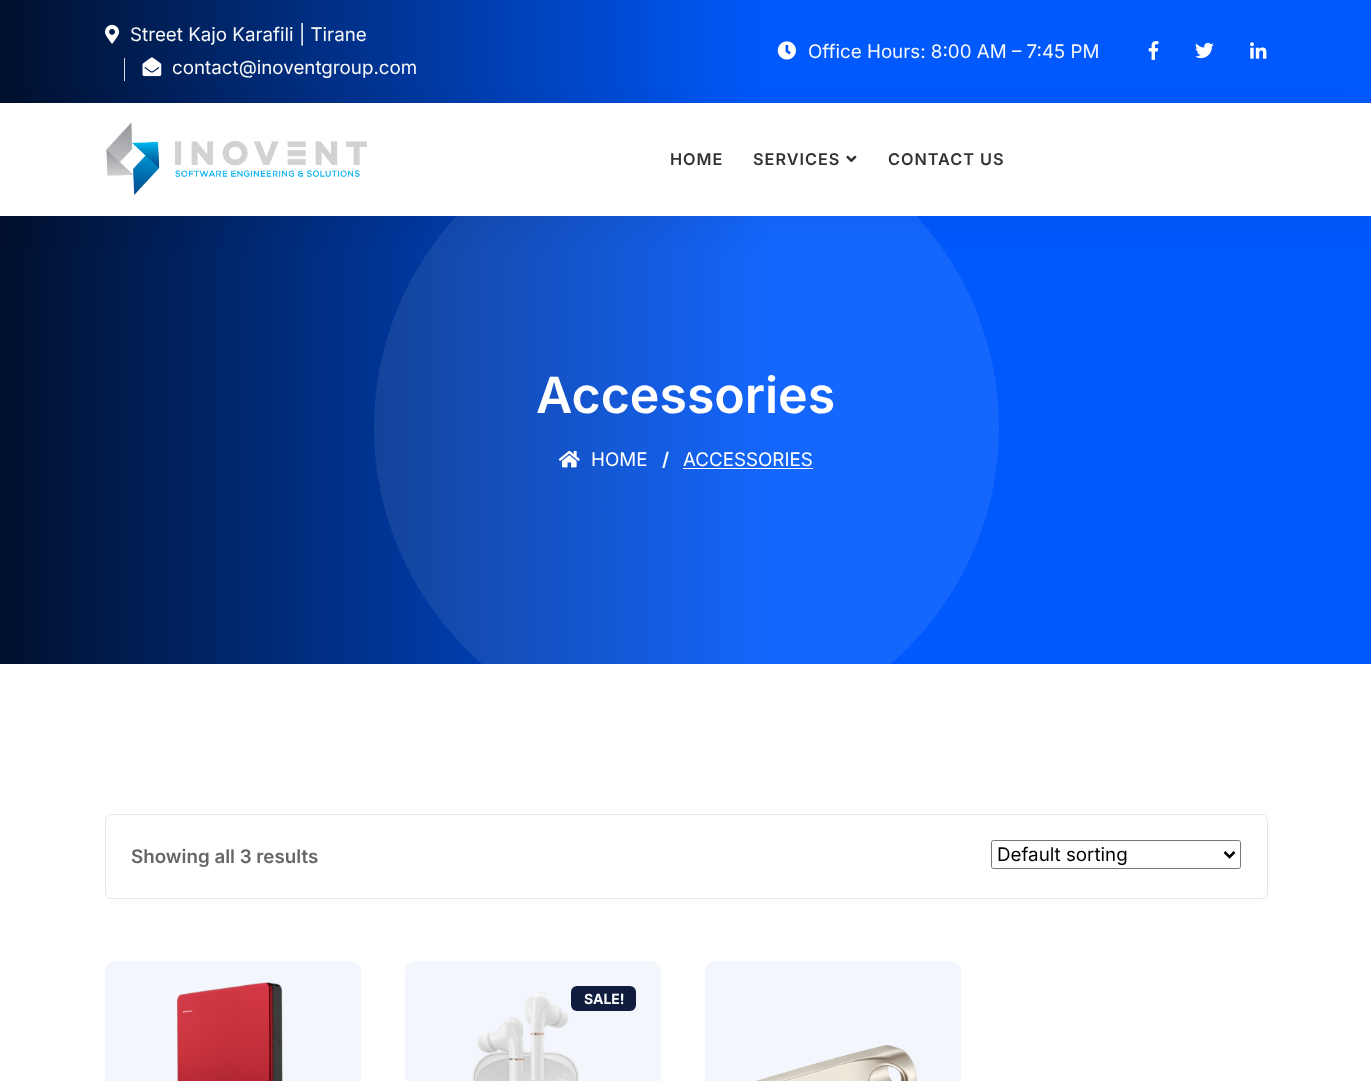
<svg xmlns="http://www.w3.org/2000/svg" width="1371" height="1081">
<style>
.a{font:18.75px Inter;fill:#f8f9fa}
.b{font:600 16.25px Inter;letter-spacing:1px;fill:#333}
.c{font:600 50px Inter;fill:#fff}
.d{font:18.75px Inter;fill:#fff}
.e{font:600 18.75px Inter;fill:#fff}
.f{font:600 18.75px Inter;fill:#666}
.g{font:18.75px Inter;fill:#000}
.h{font:bold 14px Inter;fill:#fff}
</style>
<defs>
<linearGradient id="g1" gradientUnits="userSpaceOnUse" x1="0" y1="51" x2="1371" y2="51"><stop offset="0" stop-color="#00102d"/><stop offset="0.56" stop-color="#0059fc"/></linearGradient>
<linearGradient id="g2" gradientUnits="userSpaceOnUse" x1="0" y1="541" x2="1371" y2="541"><stop offset="0" stop-color="#00102d"/><stop offset="0.56" stop-color="#0059fc"/></linearGradient>
<clipPath id="clip1"><path d="M0 190h1371v474H0z"/></clipPath>
</defs>
<rect width="100%" height="100%" fill="#fff"/>
<path fill="url(#g1)" d="M0 0h1371v103H0z"/>
<image href="1.png" x="105" y="24" width="15" height="20"/>
<path fill="#ddd" d="M124 58h1v23H124z"/>
<image href="2.png" x="142" y="57" width="20" height="20"/>
<image href="3.png" x="777" y="41" width="19" height="19"/>
<image href="4.png" x="1148" y="41" width="11" height="19"/>
<image href="5.png" x="1195" y="42" width="19" height="17"/>
<image href="6.png" x="1250" y="42" width="17" height="17"/>
<path fill="url(#g2)" d="M0 216h1371v448H0z"/>
<g clip-path="url(#clip1)">
<circle fill="#ffffff14" cx="686.5" cy="427.5" r="312.5"/>
</g>
<path fill="#0000000a" filter="blur(15.5px)" d="M0 113h1371v113H0z"/>
<path fill="#fff" d="M0 103h1371v113H0z"/>
<image href="7.png" x="106" y="122" width="261" height="73"/>
<image href="8.png" x="846" y="155" width="11" height="8"/>
<image href="9.png" x="558" y="451" width="22" height="17"/>
<path fill="#fff" d="M683 468h130v1H683z"/>
<rect fill="none" stroke="#e7e7e7" x="105.5" y="814.5" width="1162" height="84" rx="5.5"/>
<rect fill="none" stroke="#767676" x="991.5" y="840.5" width="249" height="28" rx="2"/>
<path fill="none" stroke="#000" stroke-width="2.5" d="M1224.5 852l5 5l5-5"/>
<rect fill="#f3f7fd" x="105" y="961" width="256" height="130" rx="10"/>
<image href="10.png" x="176" y="982" width="107" height="99"/>
<rect fill="#f3f7fd" x="405" y="961" width="256" height="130" rx="10"/>
<image href="11.png" x="472" y="992" width="108" height="89"/>
<rect fill="#101c3d" x="571" y="986" width="65" height="25" rx="6"/>
<rect fill="#f3f7fd" x="705" y="961" width="256" height="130" rx="10"/>
<image href="12.png" x="755" y="1044" width="162" height="37"/>
<text class="a" x="130" y="41">Street Kajo Karafili | Tirane</text>
<text class="a" x="172" y="74">contact@inoventgroup.com</text>
<text class="a" x="808" y="58">Office Hours: 8:00 AM – 7:45 PM</text>
<text class="b" x="670" y="165">HOME</text>
<text class="b" x="753" y="165">SERVICES</text>
<text class="b" x="888" y="165">CONTACT US</text>
<text class="c" x="536" y="413">Accessories</text>
<text class="d" x="591" y="466">HOME</text>
<text class="e" x="662" y="466">/</text>
<text class="d" x="683" y="466">ACCESSORIES</text>
<text class="f" x="131" y="863">Showing all 3 results</text>
<text class="g" x="997" y="861">Default sorting</text>
<text class="h" x="584" y="1004">SALE!</text>
</svg>
